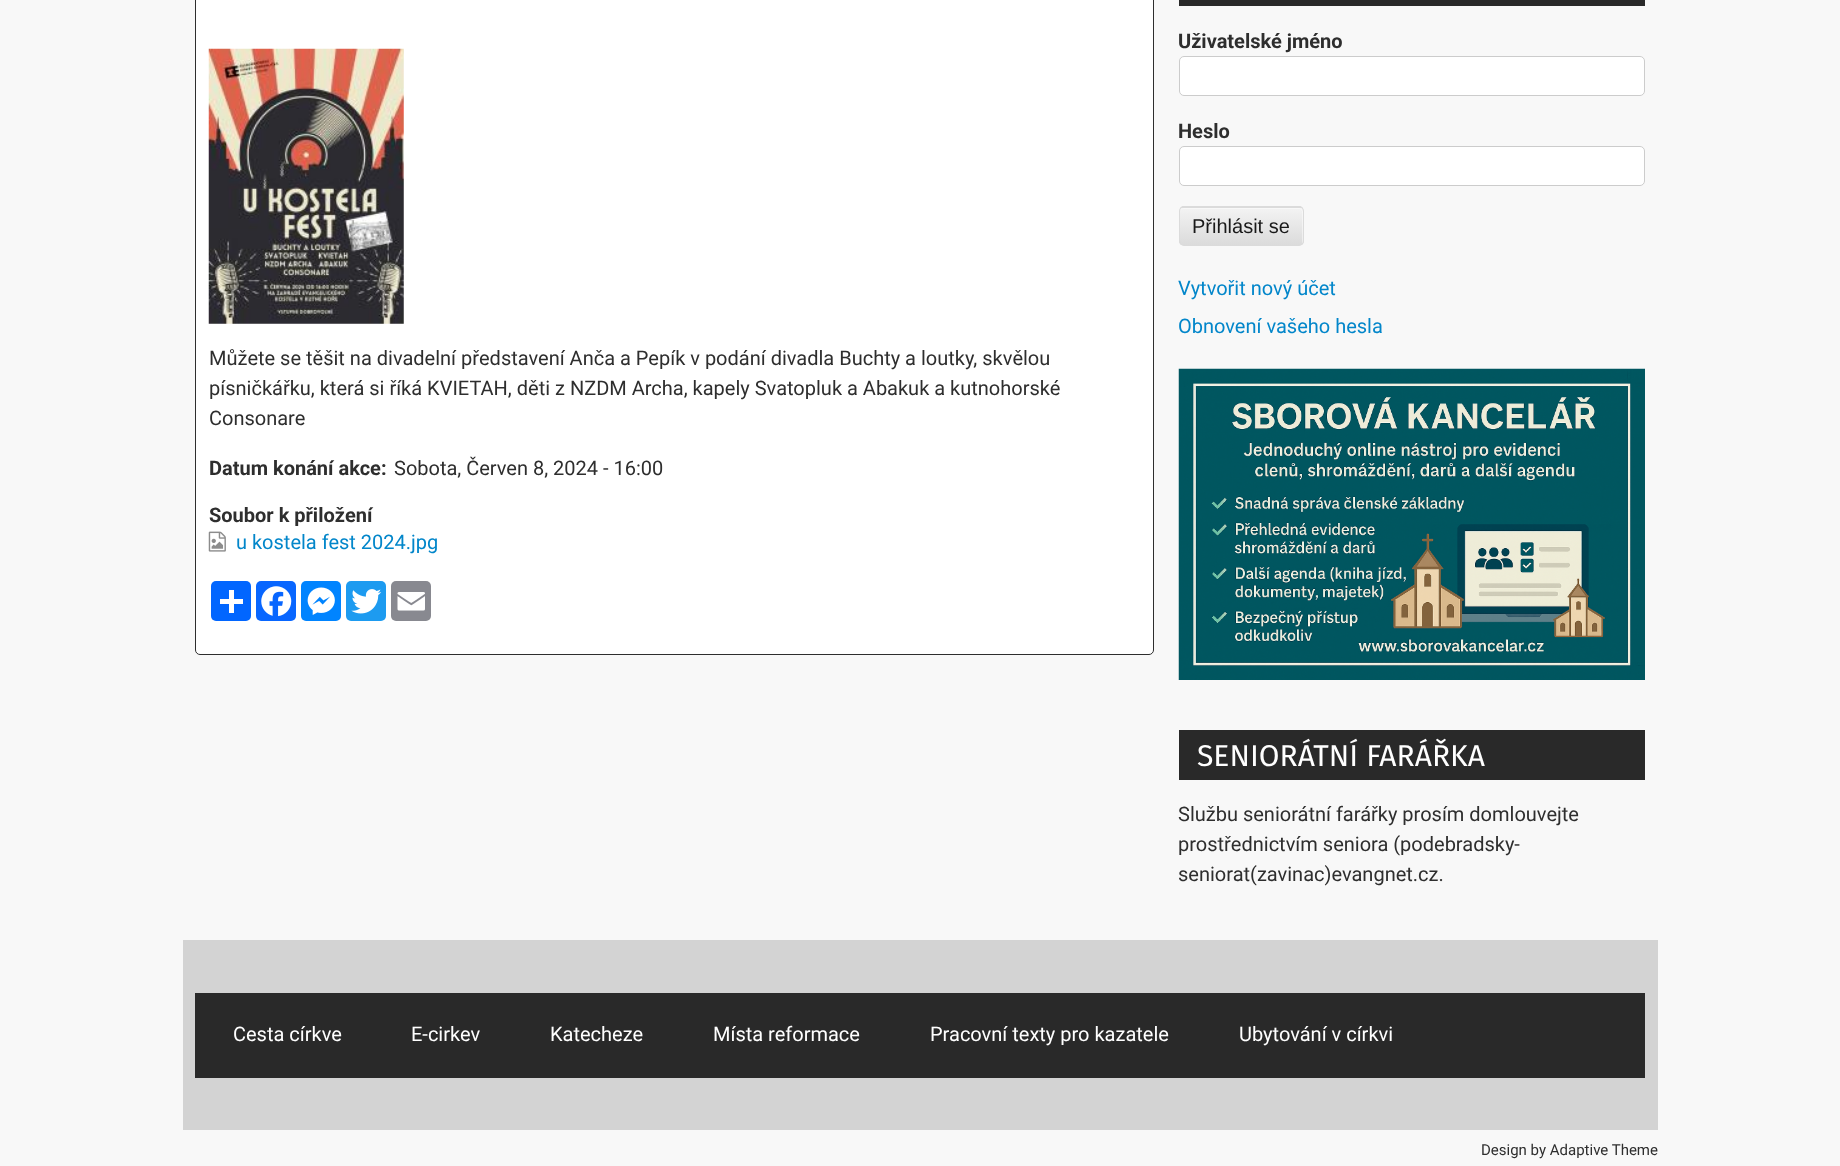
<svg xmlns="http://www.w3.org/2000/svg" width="1840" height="1166">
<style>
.a{font:20px Roboto;fill:#2e2e2e}
.b{font:bold 20px Roboto;fill:#2e2e2e}
.c{font:20px Roboto;fill:#0286ca}
.d{font:20px Liberation Sans;fill:#191919}
.e{font:30px Fira Sans;fill:#fff}
.f{font:20px Roboto;fill:#fff}
.g{font:15px Roboto;fill:#2e2e2e}
</style>
<defs>
<clipPath id="clip1"><rect x="1179" y="206" width="125" height="40" rx="5"/></clipPath>
<linearGradient id="g1" gradientUnits="userSpaceOnUse" x1="1241" y1="170" x2="1241" y2="208"><stop offset="0" stop-color="#f3f3f3"/><stop offset="1" stop-color="#dbdbdb"/></linearGradient>
<linearGradient id="g2" gradientUnits="userSpaceOnUse" x1="1241" y1="208" x2="1241" y2="245"><stop offset="0" stop-color="#f3f3f3"/><stop offset="1" stop-color="#dbdbdb"/></linearGradient>
</defs>
<rect width="100%" height="100%" fill="#f8f8f8"/>
<rect fill="#fff" stroke="#2e2e2e" x="195.5" y="-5.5" width="958" height="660" rx="4.5"/>
<image href="1.png" x="208" y="48" width="196" height="276"/>
<image href="2.png" x="208" y="531" width="18" height="21"/>
<rect fill="#0166ff" x="211" y="581" width="40" height="40" rx="5"/>
<path fill="#fff" d="M229 590h5v23H229z"/>
<path fill="#fff" d="M220 599h23v5H220z"/>
<rect fill="#0866ff" x="256" y="581" width="40" height="40" rx="5"/>
<image href="3.png" x="261" y="586" width="31" height="31"/>
<rect fill="#0084ff" x="301" y="581" width="40" height="40" rx="5"/>
<image href="4.png" x="307" y="587" width="28" height="28"/>
<rect fill="#1d9bf0" x="346" y="581" width="40" height="40" rx="5"/>
<image href="5.png" x="351" y="589" width="31" height="25"/>
<rect fill="#888990" x="391" y="581" width="40" height="40" rx="5"/>
<image href="6.png" x="397" y="592" width="28" height="19"/>
<path fill="#292929" d="M1179 0h466v6H1179z"/>
<rect fill="#fff" stroke="#ccc" x="1179.5" y="56.5" width="465" height="39" rx="4.5"/>
<rect fill="#fff" stroke="#ccc" x="1179.5" y="146.5" width="465" height="39" rx="4.5"/>
<g clip-path="url(#clip1)">
<path fill="url(#g1)" d="M1179 206h125v2H1179z"/>
<path fill="url(#g2)" d="M1179 208h125v37H1179z"/>
</g>
<path fill="#fefefe80" d="M1184 209h115c2 0 3 1 3 3v32c1-1 1-2 1-3v-29c0-2-2-4-4-4h-115c-2 0-4 2-4 4c0-2 2-3 4-3z"/>
<rect fill="none" stroke="#dbdbdb" x="1179.5" y="206.5" width="124" height="39" rx="4.5"/>
<image href="7.png" x="1178" y="368" width="467" height="312"/>
<path fill="#292929" d="M1179 730h466v50H1179z"/>
<path fill="#d3d3d3" d="M183 940h1475v190H183z"/>
<path fill="#292929" d="M195 993h1450v85H195z"/>
<text class="a" x="209" y="365">Můžete se těšit na divadelní představení Anča a Pepík v podání divadla Buchty a loutky, skvělou</text>
<text class="a" x="209" y="395">písničkářku, která si říká KVIETAH, děti z NZDM Archa, kapely Svatopluk a Abakuk a kutnohorské</text>
<text class="a" x="209" y="425">Consonare</text>
<text class="b" x="209" y="475">Datum konání akce:</text>
<text class="a" x="394" y="475">Sobota, Červen 8, 2024 - 16:00</text>
<text class="b" x="209" y="522">Soubor k přiložení</text>
<text class="c" x="236" y="549">u kostela fest 2024.jpg</text>
<text class="b" x="1178" y="48">Uživatelské jméno</text>
<text class="b" x="1178" y="138">Heslo</text>
<text class="d" x="1192" y="233">Přihlásit se</text>
<text class="c" x="1178" y="295">Vytvořit nový účet</text>
<text class="c" x="1178" y="333">Obnovení vašeho hesla</text>
<text class="e" x="1197" y="766">SENIORÁTNÍ FARÁŘKA</text>
<text class="a" x="1178" y="821">Službu seniorátní farářky prosím domlouvejte</text>
<text class="a" x="1178" y="851">prostřednictvím seniora (podebradsky-</text>
<text class="a" x="1178" y="881">seniorat(zavinac)evangnet.cz.</text>
<text class="f" x="233" y="1041">Cesta církve</text>
<text class="f" x="411" y="1041">E-cirkev</text>
<text class="f" x="550" y="1041">Katecheze</text>
<text class="f" x="713" y="1041">Místa reformace</text>
<text class="f" x="930" y="1041">Pracovní texty pro kazatele</text>
<text class="f" x="1239" y="1041">Ubytování v církvi</text>
<text class="g" x="1481" y="1155">Design by Adaptive Theme</text>
</svg>
